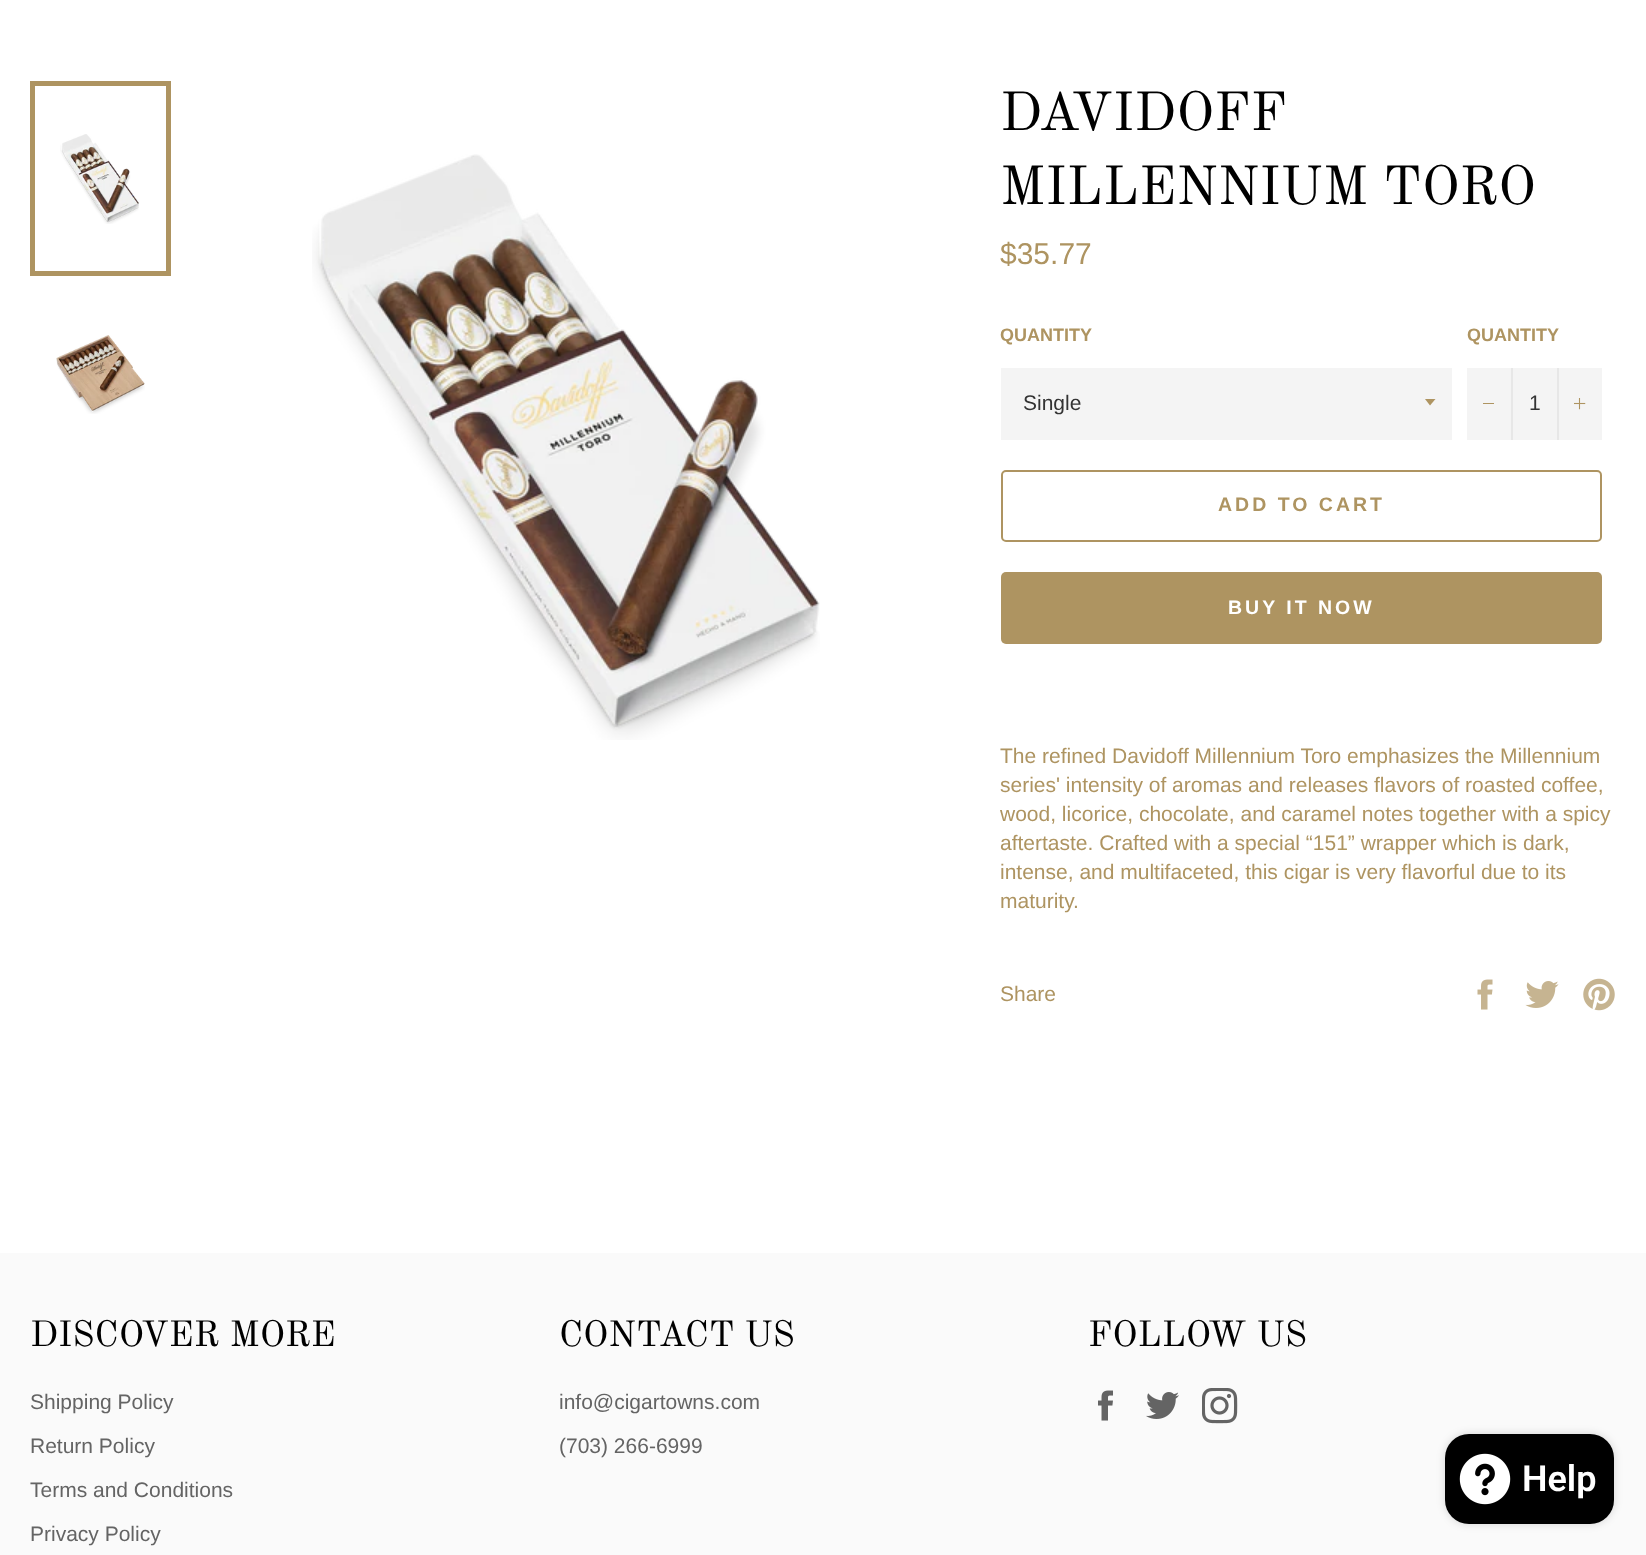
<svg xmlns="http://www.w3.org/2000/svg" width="1646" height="1555">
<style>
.a{font:54px Old Standard TT;fill:#000}
.b{font:30px Liberation Sans;fill:#ae9461}
.c{font:bold 18px Liberation Sans;fill:#ae9461}
.d{font:21px Liberation Sans;fill:#333}
.e{font:bold 19.5px Liberation Sans;letter-spacing:3px;fill:#ae9461}
.f{font:bold 19.5px Liberation Sans;letter-spacing:3px;fill:#fff}
.g{font:21px Liberation Sans;fill:#ae9461}
.h{font:36px Old Standard TT;fill:#000}
.i{font:21px Liberation Sans;fill:#646464}
.j{font:600 36px Roboto;fill:#fff}
</style>
<rect width="100%" height="100%" fill="#fff"/>
<image href="1.png" x="60" y="134" width="79" height="90"/>
<path fill="none" stroke="#ae9461" stroke-width="5" d="M32.5 83.5h136v190H32.5z"/>
<image href="2.png" x="56" y="335" width="89" height="79"/>
<image href="3.png" x="312" y="154" width="508" height="586"/>
<path fill="#f4f4f4" d="M1001 368h451v72H1001z"/>
<path fill="#ae9461" d="M1425 399l5 6.5l5.5-6.5z"/>
<path fill="#f4f4f4" d="M1467 368h135v72H1467z"/>
<path fill="#e7e7e7" d="M1511 368h2v72H1511z"/>
<path fill="#ae9461" d="M1483 403h11v1H1483z"/>
<path fill="#e7e7e7" d="M1557 368h2v72H1557z"/>
<image href="4.png" x="1574" y="398" width="12" height="12"/>
<rect fill="none" stroke="#ae9461" stroke-width="2" x="1002" y="471" width="599" height="70" rx="4"/>
<rect fill="#ae9461" x="1001" y="572" width="601" height="72" rx="5"/>
<image href="5.png" x="1477" y="979" width="16" height="31"/>
<image href="6.png" x="1525" y="981" width="34" height="27"/>
<image href="7.png" x="1583" y="978" width="32" height="33"/>
<path fill="#fafafa" d="M0 1253h1646v302H0z"/>
<image href="8.png" x="1098" y="1390" width="15" height="31"/>
<image href="9.png" x="1146" y="1392" width="33" height="27"/>
<image href="10.png" x="1202" y="1388" width="36" height="36"/>
<rect fill="#00000026" filter="blur(4px)" x="1445" y="1434" width="169" height="90" rx="24"/>
<rect fill="#000" x="1445" y="1434" width="169" height="90" rx="24"/>
<image href="11.png" x="1459" y="1453" width="52" height="52"/>
<text class="a" x="1000" y="130">DAVIDOFF</text>
<text class="a" x="1000" y="204">MILLENNIUM TORO</text>
<text class="b" x="1000" y="264">$35.77</text>
<text class="c" x="1000" y="341">QUANTITY</text>
<text class="d" x="1023" y="410">Single</text>
<text class="c" x="1467" y="341">QUANTITY</text>
<text class="d" x="1529" y="410">1</text>
<text class="e" x="1218" y="511">ADD TO CART</text>
<text class="f" x="1228" y="614">BUY IT NOW</text>
<text class="g" x="1000" y="763">The refined Davidoff Millennium Toro emphasizes the Millennium</text>
<text class="g" x="1000" y="792">series' intensity of aromas and releases flavors of roasted coffee,</text>
<text class="g" x="1000" y="821">wood, licorice, chocolate, and caramel notes together with a spicy</text>
<text class="g" x="1000" y="850">aftertaste. Crafted with a special “151” wrapper which is dark,</text>
<text class="g" x="1000" y="879">intense, and multifaceted, this cigar is very flavorful due to its</text>
<text class="g" x="1000" y="908">maturity.</text>
<text class="g" x="1000" y="1001">Share</text>
<text class="h" x="30" y="1346">DISCOVER MORE</text>
<text class="i" x="30" y="1409">Shipping Policy</text>
<text class="i" x="30" y="1453">Return Policy</text>
<text class="i" x="30" y="1497">Terms and Conditions</text>
<text class="i" x="30" y="1541">Privacy Policy</text>
<text class="h" x="559" y="1346">CONTACT US</text>
<text class="i" x="559" y="1409">info@cigartowns.com</text>
<text class="i" x="559" y="1453">(703) 266-6999</text>
<text class="h" x="1088" y="1346">FOLLOW US</text>
<text class="j" x="1522" y="1491">Help</text>
</svg>
